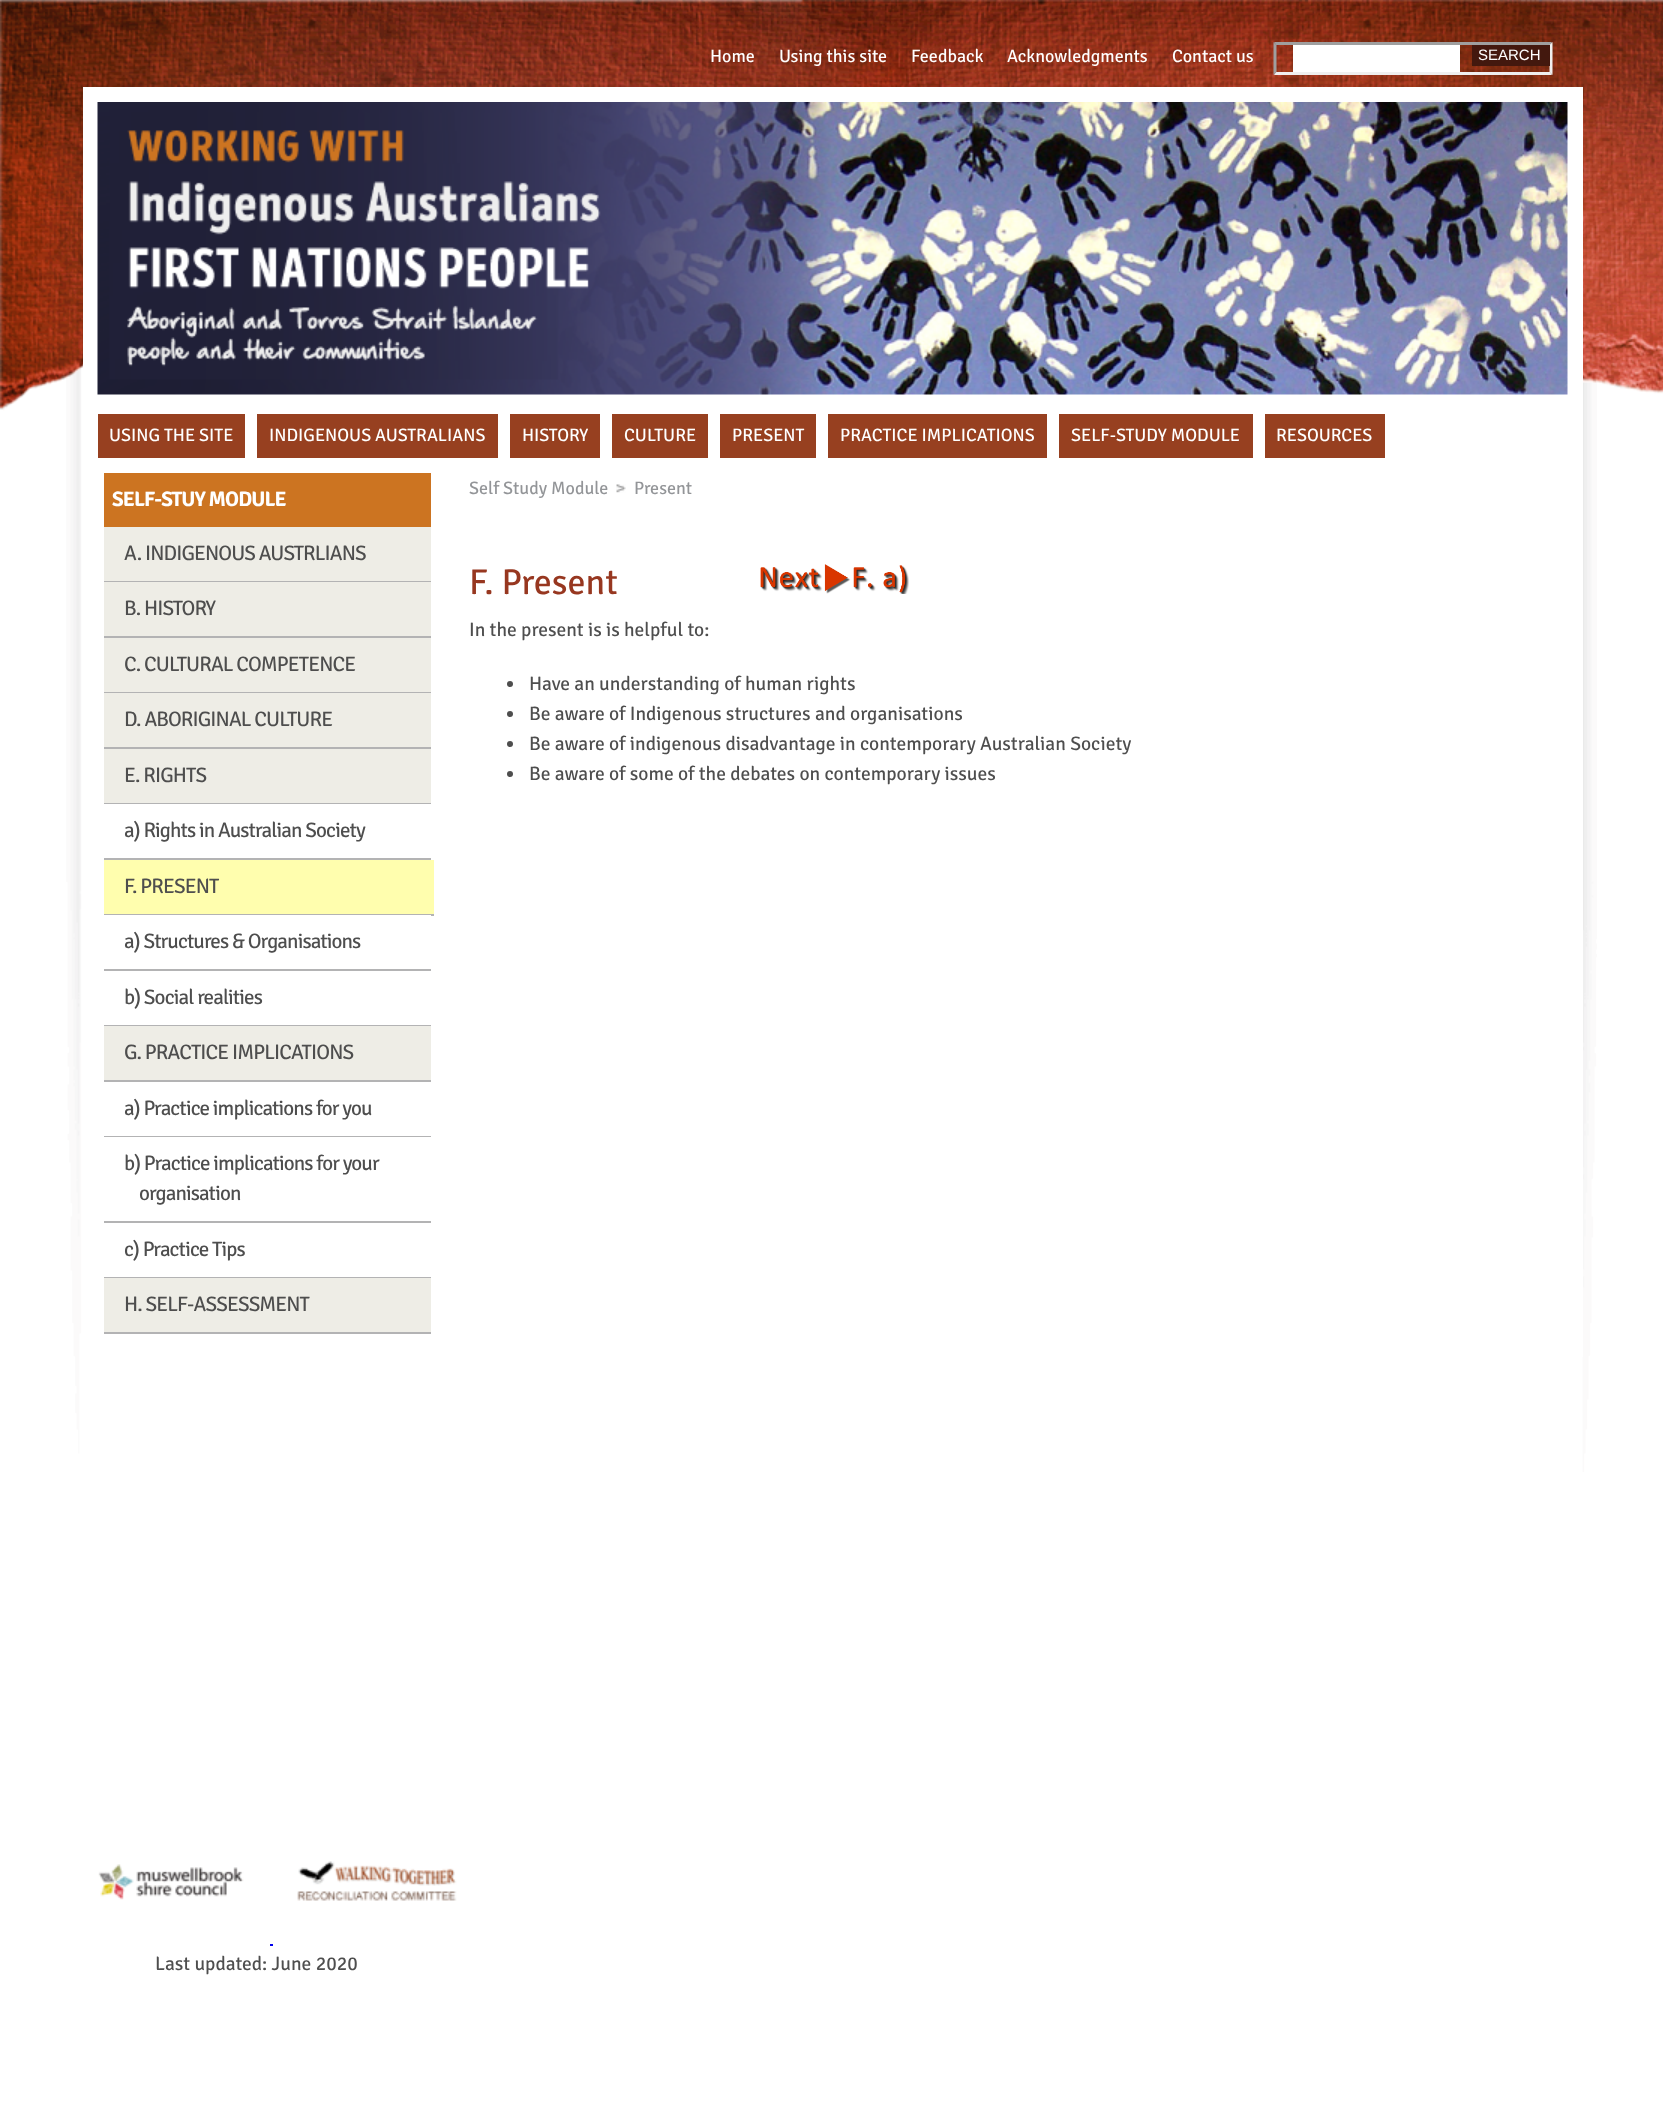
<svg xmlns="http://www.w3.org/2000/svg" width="1663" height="2122">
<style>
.a{font:18px Signika Negative;fill:#fff}
.b{font:15px Liberation Sans;fill:#fff}
.c{font:bold 21px Signika Negative;letter-spacing:-0.9px;fill:#fff}
.d{font:21px Signika Negative;letter-spacing:-0.9px;fill:#4e4e4e}
.e{font:18px Signika Negative;fill:#939598}
.f{font:36px Signika Negative;fill:#973720}
.g{font:19.5px Signika Negative;fill:#4e4e4e}
</style>
<rect width="100%" height="100%" fill="#fff"/>
<image href="1.png" x="66" y="367" width="1531" height="1105"/>
<image href="2.png" x="0" y="0" width="1663" height="412"/>
<path fill="#9f9f9f" d="M1274 42h278l-2 3h-274z"/>
<path fill="#efefef" d="M1552.5 42v33l-3-3v-27z"/>
<path fill="#efefef" d="M1552 75h-278l2-3h274z"/>
<path fill="#9f9f9f" d="M1273.5 75v-33l3 3v27z"/>
<path fill="#fff" d="M1293 45h167v27H1293z"/>
<path fill="#43180e" d="M1472 45h78v21H1472z"/>
<path fill="#fff" d="M83 87h1500v1270H83z"/>
<image href="3.png" x="97" y="102" width="1471" height="293"/>
<path fill="#974020" d="M98 414h147v44H98z"/>
<path fill="#974020" d="M257 414h241v44H257z"/>
<path fill="#974020" d="M510 414h90v44H510z"/>
<path fill="#974020" d="M612 414h96v44H612z"/>
<path fill="#974020" d="M720 414h96v44H720z"/>
<path fill="#974020" d="M828 414h219v44H828z"/>
<path fill="#974020" d="M1059 414h194v44H1059z"/>
<path fill="#974020" d="M1265 414h120v44H1265z"/>
<path fill="#cc7421" d="M104 473h327v54H104z"/>
<path fill="#b3b3b4" d="M104 1332h327v2H104z"/>
<path fill="#eeede6" d="M104 527h327v54H104z"/>
<path fill="#b3b3b4" d="M104 581h327v1H104z"/>
<path fill="#eeede6" d="M104 582h327v54H104z"/>
<path fill="#b3b3b4" d="M104 636h327v2H104z"/>
<path fill="#eeede6" d="M104 638h327v54H104z"/>
<path fill="#b3b3b4" d="M104 692h327v1H104z"/>
<path fill="#eeede6" d="M104 693h327v54H104z"/>
<path fill="#b3b3b4" d="M104 747h327v2H104z"/>
<path fill="#eeede6" d="M104 749h327v54H104z"/>
<path fill="#b3b3b4" d="M104 803h327v1H104z"/>
<path fill="#b3b3b4" d="M104 858h327v2H104z"/>
<path fill="#fffeae" d="M104 860h330v54H104z"/>
<path fill="#b3b3b4" d="M104 914h330v2H104z"/>
<path fill="#fff" d="M104 915h327v1H104z"/>
<path fill="#b3b3b4" d="M104 969h327v2H104z"/>
<path fill="#b3b3b4" d="M104 1025h327v1H104z"/>
<path fill="#eeede6" d="M104 1026h327v54H104z"/>
<path fill="#b3b3b4" d="M104 1080h327v2H104z"/>
<path fill="#b3b3b4" d="M104 1136h327v1H104z"/>
<path fill="#b3b3b4" d="M104 1221h327v2H104z"/>
<path fill="#b3b3b4" d="M104 1277h327v1H104z"/>
<path fill="#eeede6" d="M104 1278h327v54H104z"/>
<image href="4.png" x="616" y="484" width="10" height="9"/>
<image href="5.png" x="760" y="564" width="149" height="30"/>
<circle fill="#4e4e4e" cx="510" cy="684" r="3"/>
<circle fill="#4e4e4e" cx="510" cy="714" r="3"/>
<circle fill="#4e4e4e" cx="510" cy="744" r="3"/>
<circle fill="#4e4e4e" cx="510" cy="774" r="3"/>
<image href="6.png" x="98" y="1864" width="146" height="36"/>
<image href="7.png" x="297" y="1861" width="160" height="40"/>
<path fill="#00e" d="M270 1944h3v2H270z"/>
<text class="a" x="710" y="62">Home</text>
<text class="a" x="779" y="62">Using this site</text>
<text class="a" x="911" y="62">Feedback</text>
<text class="a" x="1007" y="62">Acknowledgments</text>
<text class="a" x="1172" y="62">Contact us</text>
<text class="b" x="1478" y="60">SEARCH</text>
<text class="a" x="109" y="441">USING THE SITE</text>
<text class="a" x="269" y="441">INDIGENOUS AUSTRALIANS</text>
<text class="a" x="522" y="441">HISTORY</text>
<text class="a" x="624" y="441">CULTURE</text>
<text class="a" x="732" y="441">PRESENT</text>
<text class="a" x="840" y="441">PRACTICE IMPLICATIONS</text>
<text class="a" x="1071" y="441">SELF-STUDY MODULE</text>
<text class="a" x="1276" y="441">RESOURCES</text>
<text class="c" x="112" y="506">SELF-STUY MODULE</text>
<text class="d" x="124" y="560">A. INDIGENOUS AUSTRLIANS</text>
<text class="d" x="124" y="615">B. HISTORY</text>
<text class="d" x="124" y="671">C. CULTURAL COMPETENCE</text>
<text class="d" x="124" y="726">D. ABORIGINAL CULTURE</text>
<text class="d" x="124" y="782">E. RIGHTS</text>
<text class="d" x="124" y="837">a) Rights in Australian Society</text>
<text class="d" x="124" y="893">F. PRESENT</text>
<text class="d" x="124" y="948">a) Structures &amp; Organisations</text>
<text class="d" x="124" y="1004">b) Social realities</text>
<text class="d" x="124" y="1059">G. PRACTICE IMPLICATIONS</text>
<text class="d" x="124" y="1115">a) Practice implications for you</text>
<text class="d" x="124" y="1170">b) Practice implications for your</text>
<text class="d" x="139" y="1200">organisation</text>
<text class="d" x="124" y="1256">c) Practice Tips</text>
<text class="d" x="124" y="1311">H. SELF-ASSESSMENT</text>
<text class="e" x="469" y="494">Self Study Module</text>
<text class="e" x="634" y="494">Present</text>
<text class="f" x="469" y="594">F. Present</text>
<text class="g" x="469" y="636">In the present is is helpful to:</text>
<text class="g" x="529" y="690">Have an understanding of human rights</text>
<text class="g" x="529" y="720">Be aware of Indigenous structures and organisations</text>
<text class="g" x="529" y="750">Be aware of indigenous disadvantage in contemporary Australian Society</text>
<text class="g" x="529" y="780">Be aware of some of the debates on contemporary issues</text>
<text class="g" x="155" y="1970">Last updated: June 2020</text>
</svg>
